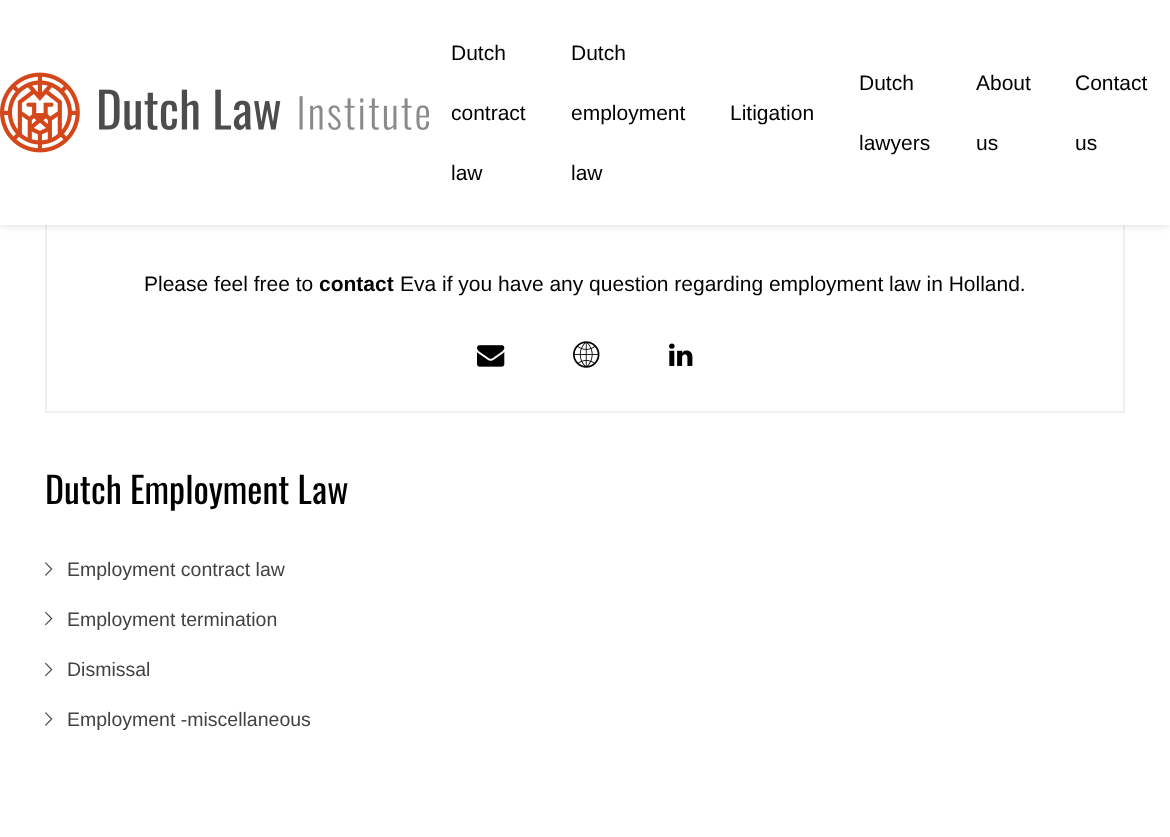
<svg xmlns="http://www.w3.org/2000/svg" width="1170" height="837">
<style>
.a{font:21px Liberation Sans;fill:#000}
.b{font:bold 21px Liberation Sans;fill:#000}
.c{font:36px Oswald;fill:#000}
.d{font:19.5px Liberation Sans;fill:#424242}
</style>
<rect width="100%" height="100%" fill="#fff"/>
<path fill="none" stroke="#f0f0f0" stroke-width="2" d="M46 -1h1078v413H46z"/>
<path fill="#00000026" filter="blur(4px)" d="M0 0h1170v225H0z"/>
<path fill="#fff" d="M0 0h1170v225H0z"/>
<image href="1.png" x="0" y="72" width="429" height="81"/>
<image href="2.png" x="477" y="345" width="28" height="22"/>
<image href="3.png" x="573" y="341" width="27" height="27"/>
<image href="4.png" x="669" y="343" width="24" height="23"/>
<image href="5.png" x="45" y="562" width="8" height="14"/>
<image href="6.png" x="45" y="611" width="8" height="15"/>
<image href="6.png" x="45" y="662" width="8" height="15"/>
<image href="5.png" x="45" y="712" width="8" height="14"/>
<text class="a" x="451" y="60">Dutch</text>
<text class="a" x="451" y="120">contract</text>
<text class="a" x="451" y="180">law</text>
<text class="a" x="571" y="60">Dutch</text>
<text class="a" x="571" y="120">employment</text>
<text class="a" x="571" y="180">law</text>
<text class="a" x="730" y="120">Litigation</text>
<text class="a" x="859" y="90">Dutch</text>
<text class="a" x="859" y="150">lawyers</text>
<text class="a" x="976" y="90">About</text>
<text class="a" x="976" y="150">us</text>
<text class="a" x="1075" y="90">Contact</text>
<text class="a" x="1075" y="150">us</text>
<text class="a" x="144" y="291">Please feel free to</text>
<text class="b" x="319" y="291">contact</text>
<text class="a" x="400" y="291">Eva if you have any question regarding employment law in Holland.</text>
<text class="c" x="45" y="504">Dutch Employment Law</text>
<text class="d" x="67" y="576">Employment contract law</text>
<text class="d" x="67" y="626">Employment termination</text>
<text class="d" x="67" y="676">Dismissal</text>
<text class="d" x="67" y="726">Employment -miscellaneous</text>
</svg>
